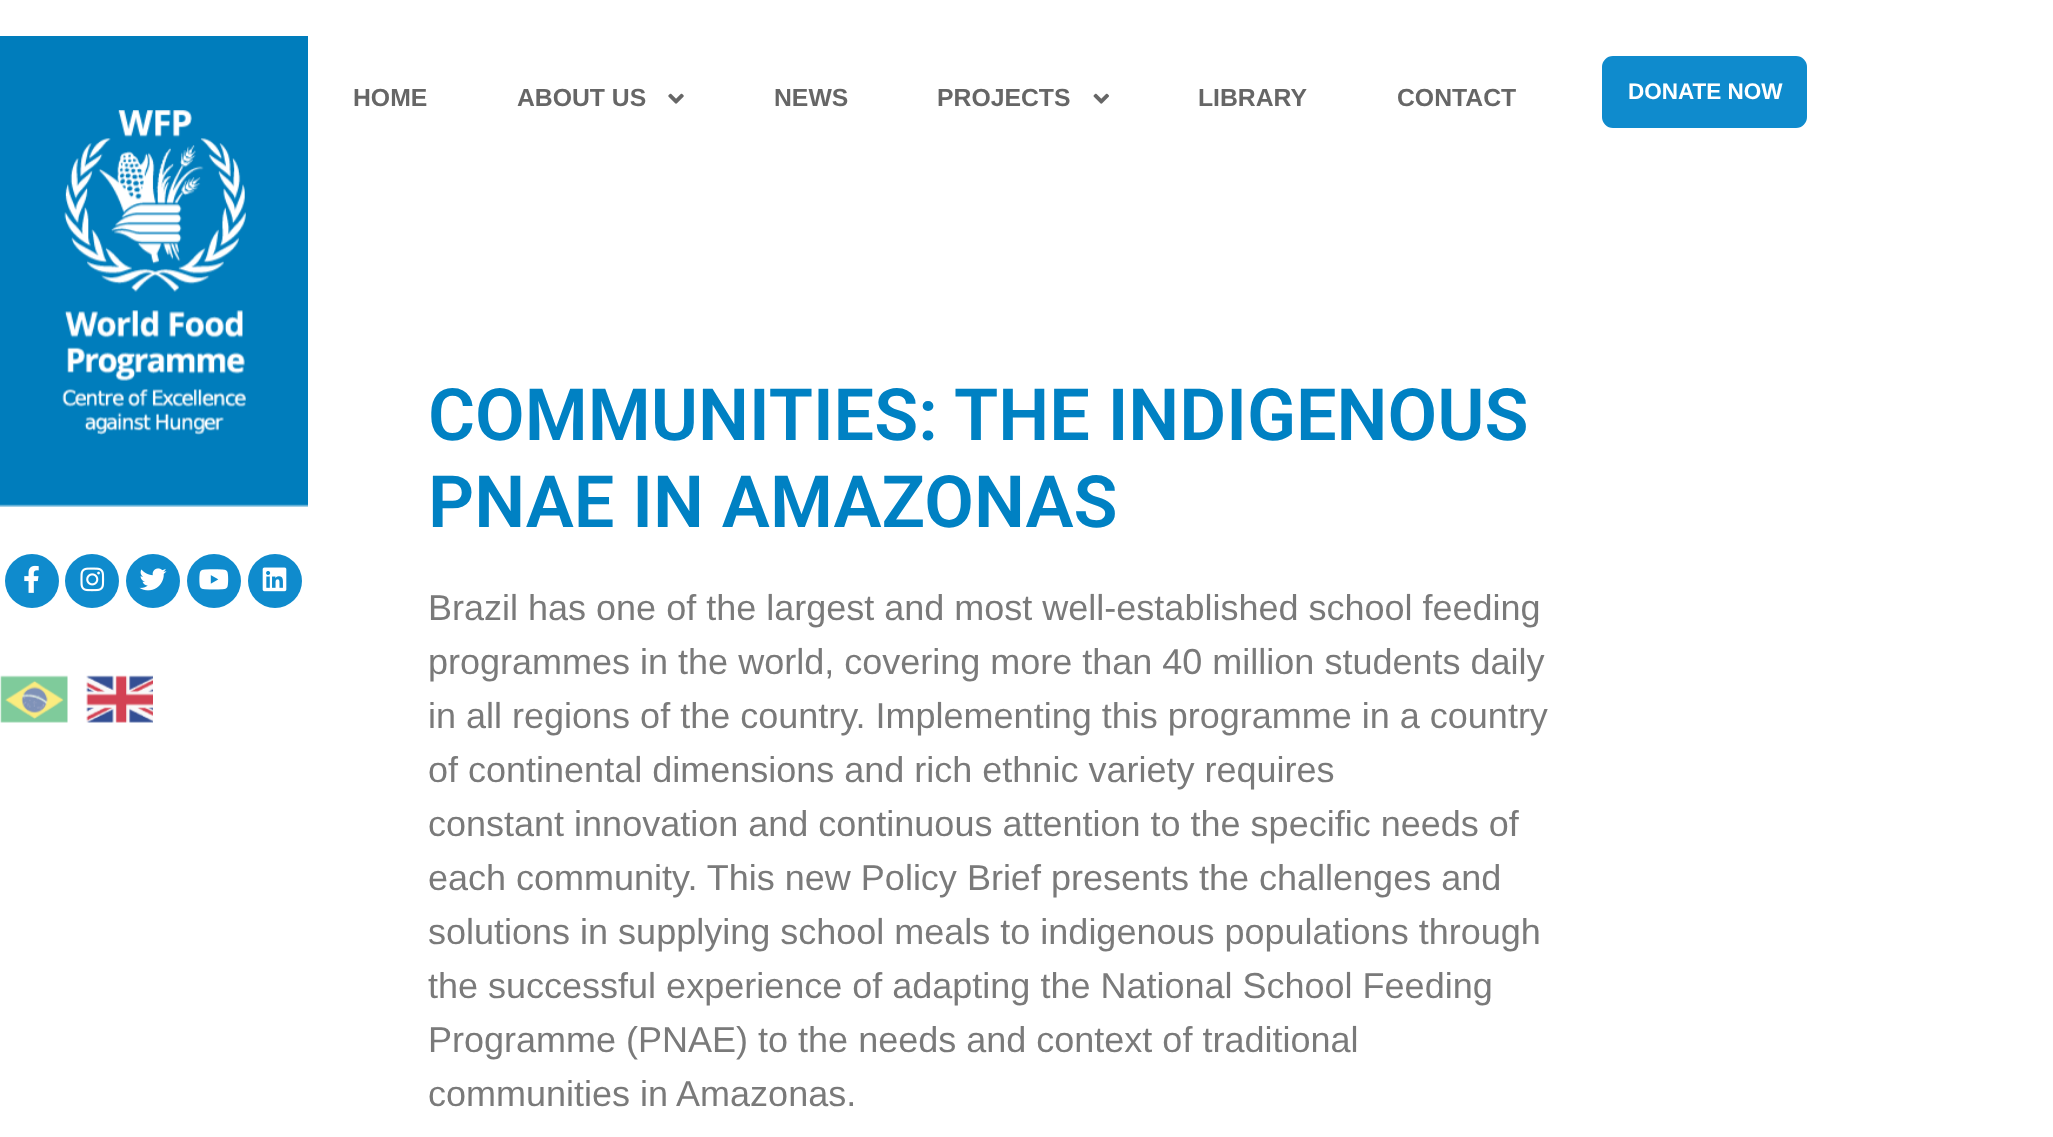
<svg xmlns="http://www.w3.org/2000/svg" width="2053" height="1137">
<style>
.a{font:bold 24.75px Liberation Sans;fill:#666}
.b{font:bold 22.5px Liberation Sans;fill:#fff}
.c{font:600 72px Roboto;fill:#0081c3}
.d{font:36px Liberation Sans;fill:#7a7a7a}
</style>
<rect width="100%" height="100%" fill="#fff"/>
<image href="1.png" x="0" y="36" width="308" height="471"/>
<circle fill="#0f8bcd" cx="32" cy="581" r="27"/>
<image href="2.png" x="24" y="565" width="15" height="28"/>
<circle fill="#0f8bcd" cx="92" cy="581" r="27"/>
<image href="3.png" x="80" y="567" width="25" height="25"/>
<circle fill="#0f8bcd" cx="153" cy="581" r="27"/>
<image href="4.png" x="139" y="568" width="28" height="23"/>
<circle fill="#0f8bcd" cx="214" cy="581" r="27"/>
<image href="5.png" x="199" y="569" width="30" height="21"/>
<circle fill="#0f8bcd" cx="275" cy="581" r="27"/>
<image href="6.png" x="262" y="567" width="25" height="25"/>
<image href="7.png" x="668" y="93" width="16" height="11"/>
<image href="8.png" x="1093" y="93" width="16" height="11"/>
<rect fill="#0f8bcd" stroke="#0f8bcd" stroke-width="2" x="1603" y="57" width="203" height="70" rx="10"/>
<image href="9.png" x="0" y="675" width="68" height="48"/>
<image href="10.png" x="86" y="675" width="67" height="48"/>
<text class="a" x="353" y="106">HOME</text>
<text class="a" x="517" y="106">ABOUT US</text>
<text class="a" x="774" y="106">NEWS</text>
<text class="a" x="937" y="106">PROJECTS</text>
<text class="a" x="1198" y="106">LIBRARY</text>
<text class="a" x="1397" y="106">CONTACT</text>
<text class="b" x="1628" y="99">DONATE NOW</text>
<text class="c" x="428" y="440">COMMUNITIES: THE INDIGENOUS</text>
<text class="c" x="428" y="527">PNAE IN AMAZONAS</text>
<text class="d" x="428" y="620">Brazil has one of the largest and most well-established school feeding</text>
<text class="d" x="428" y="674">programmes in the world, covering more than 40 million students daily</text>
<text class="d" x="428" y="728">in all regions of the country. Implementing this programme in a country</text>
<text class="d" x="428" y="782">of continental dimensions and rich ethnic variety requires</text>
<text class="d" x="428" y="836">constant innovation and continuous attention to the specific needs of</text>
<text class="d" x="428" y="890">each community. This new Policy Brief presents the challenges and</text>
<text class="d" x="428" y="944">solutions in supplying school meals to indigenous populations through</text>
<text class="d" x="428" y="998">the successful experience of adapting the National School Feeding</text>
<text class="d" x="428" y="1052">Programme (PNAE) to the needs and context of traditional</text>
<text class="d" x="428" y="1106">communities in Amazonas.</text>
</svg>
